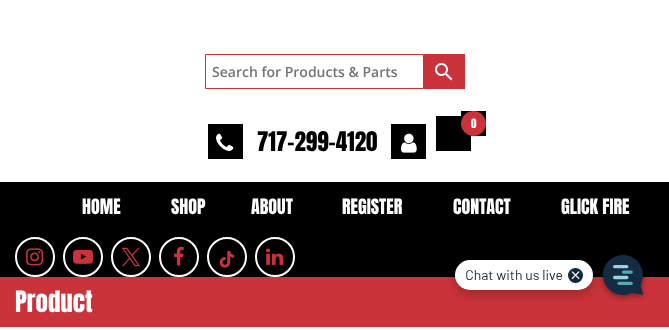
<svg xmlns="http://www.w3.org/2000/svg" width="669" height="330">
<style>
.a{font:600 14px Open Sans;fill:#757575}
.b{font:23px Anton;fill:#000}
.c{font:11px Anton;fill:#fff}
.d{font:18px Anton;fill:#fff}
.e{font:25px Anton;fill:#fff}
</style>
<rect width="100%" height="100%" fill="#fff"/>
<path fill="none" stroke="#cb333b" d="M205.5 54.5h218v34H205.5z"/>
<path fill="#cb333b" d="M424 54h41v35H424z"/>
<image href="1.png" x="435" y="63" width="18" height="18"/>
<path fill="#000" d="M208 124h35v35H208z"/>
<image href="2.png" x="216" y="133" width="18" height="18"/>
<path fill="#000" d="M391 124h35v35H391z"/>
<image href="3.png" x="401" y="133" width="16" height="20"/>
<path fill="#000" d="M436 116h35v35H436z"/>
<path fill="#000" d="M461 111h25v25H461z"/>
<circle fill="#cb333b" cx="473.5" cy="123.5" r="12.5"/>
<path fill="#000" d="M0 182h669v95H0z"/>
<circle fill="none" stroke="#fff" stroke-width="2" cx="35" cy="257" r="19"/>
<image href="4.png" x="26" y="248" width="18" height="18"/>
<circle fill="none" stroke="#fff" stroke-width="2" cx="83" cy="257" r="19"/>
<image href="5.png" x="73" y="249" width="20" height="15"/>
<circle fill="none" stroke="#fff" stroke-width="2" cx="131" cy="257" r="19"/>
<image href="6.png" x="121" y="247" width="20" height="20"/>
<circle fill="none" stroke="#fff" stroke-width="2" cx="179" cy="257" r="19"/>
<image href="7.png" x="174" y="246" width="10" height="20"/>
<circle fill="none" stroke="#fff" stroke-width="2" cx="227" cy="257" r="19"/>
<image href="8.png" x="219" y="250" width="16" height="18"/>
<circle fill="none" stroke="#fff" stroke-width="2" cx="275" cy="257" r="19"/>
<image href="9.png" x="266" y="248" width="18" height="17"/>
<path fill="#cb333b" d="M0 277h669v50H0z"/>
<image href="10.png" x="448" y="255" width="200" height="47"/>
<text class="a" x="212" y="77">Search for Products &amp; Parts</text>
<text class="b" x="257" y="151">717-299-4120</text>
<text class="c" x="471" y="128">0</text>
<text class="d" x="82" y="214">HOME</text>
<text class="d" x="171" y="214">SHOP</text>
<text class="d" x="251" y="214">ABOUT</text>
<text class="d" x="342" y="214">REGISTER</text>
<text class="d" x="453" y="214">CONTACT</text>
<text class="d" x="561" y="214">GLICK FIRE</text>
<text class="e" x="15" y="312">Product</text>
</svg>
